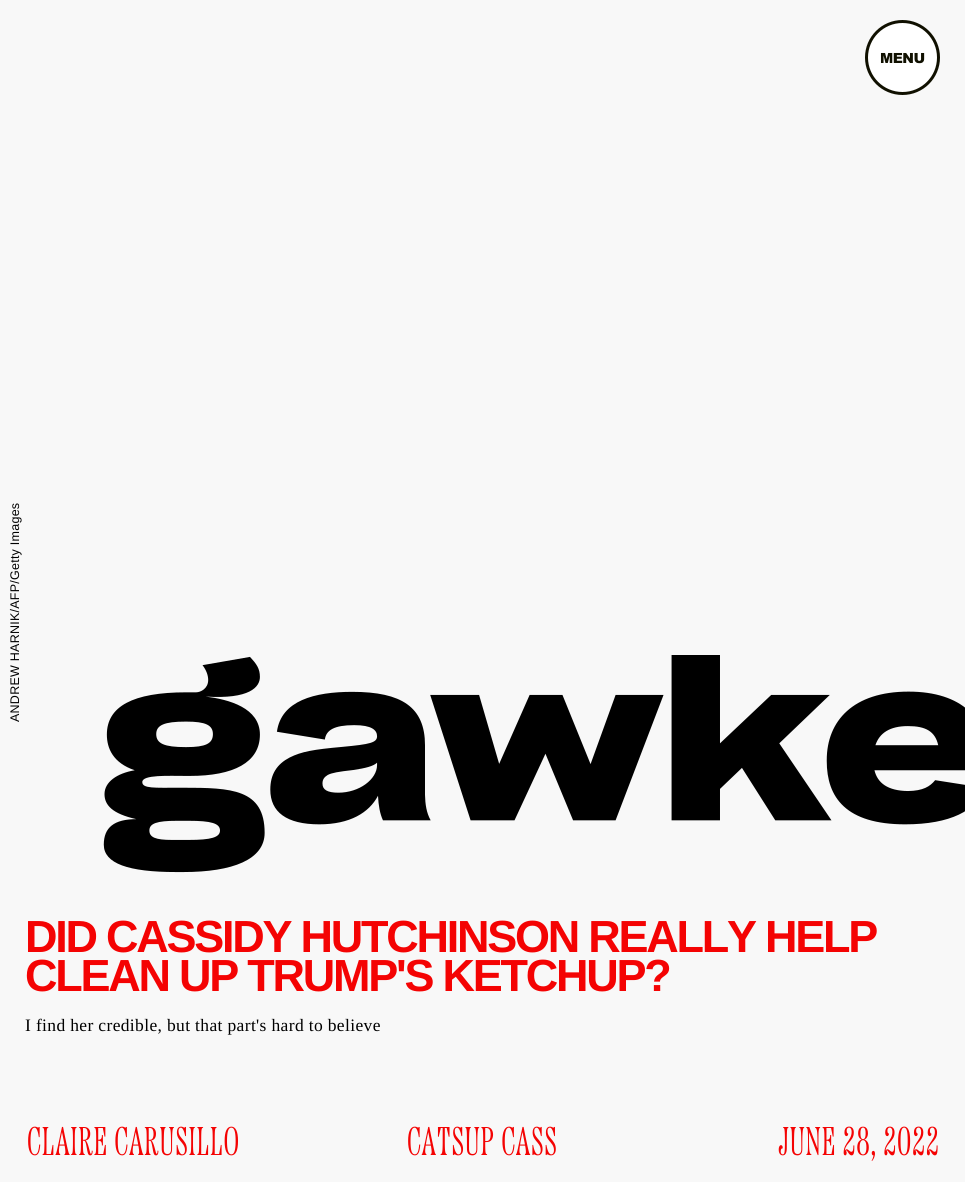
import math
import cairo

surface = cairo.ImageSurface(cairo.Format.RGB24, 965, 1182)
ctx = cairo.Context(surface)
options = cairo.FontOptions()
options.set_hint_metrics(cairo.HintMetrics.OFF)
options.set_hint_style(cairo.HintStyle.NONE)
ctx.set_font_options(options)
ctx.set_miter_limit(4)


def ink(r, g, b):
    ctx.set_source_rgb(r / 255, g / 255, b / 255)


def write_spaced(x, y, s, letter, word):
    ctx.move_to(x, y)
    for ch in s:
        ctx.show_text(ch)
        ctx.rel_move_to(letter + word * (ch == ' '), 0)


def paste(path, x, y, w, h):
    ctx.save()
    ctx.set_source_surface(cairo.ImageSurface.create_from_png(path), x, y)
    ctx.rectangle(x, y, w, h)
    ctx.fill()
    ctx.restore()


ink(248, 248, 248)
ctx.paint()
ink(255, 255, 255)
ctx.arc(902.5, 57.5, 36, 0, 2 * math.pi)
ctx.fill_preserve()
ink(16, 16, 0)
ctx.set_line_width(3)
ctx.stroke()
ctx.select_font_face("Arial Black")
ctx.set_font_size(14)
write_spaced(880, 63, "MENU", -0.5, 0)
ctx.select_font_face("Liberation Sans")
ctx.set_font_size(12.5)
ink(0, 0, 0)
ctx.save()
ctx.translate(19, 722)
ctx.rotate(-90 * math.pi / 180)
write_spaced(0, 0, "ANDREW HARNIK/AFP/Getty Images", 0.25, 0)
ctx.restore()
paste("pic1.png", 103, 655, 862, 218)
ctx.select_font_face("Liberation Sans", cairo.FontSlant.NORMAL, cairo.FontWeight.BOLD)
ctx.set_font_size(45)
ink(244, 3, 3)
write_spaced(25, 952, "DID CASSIDY HUTCHINSON REALLY HELP", -2.25, 0)
write_spaced(25, 991, "CLEAN UP TRUMP'S KETCHUP?", -2.25, 0)
ctx.select_font_face("Liberation Serif")
ctx.set_font_size(17.5)
ink(0, 0, 0)
write_spaced(25, 1031, "I find her credible, but that part's hard to believe", 0.35, 0)
ctx.select_font_face("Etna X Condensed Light")
ctx.set_font_size(40)
ink(244, 3, 3)
write_spaced(27, 1155, "CLAIRE CARUSILLO", 0.75, 0)
write_spaced(407, 1155, "CATSUP CASS", 0.75, 0)
write_spaced(778, 1155, "JUNE 28, 2022", 0.75, 0)
surface.write_to_png("screenshot.png")
